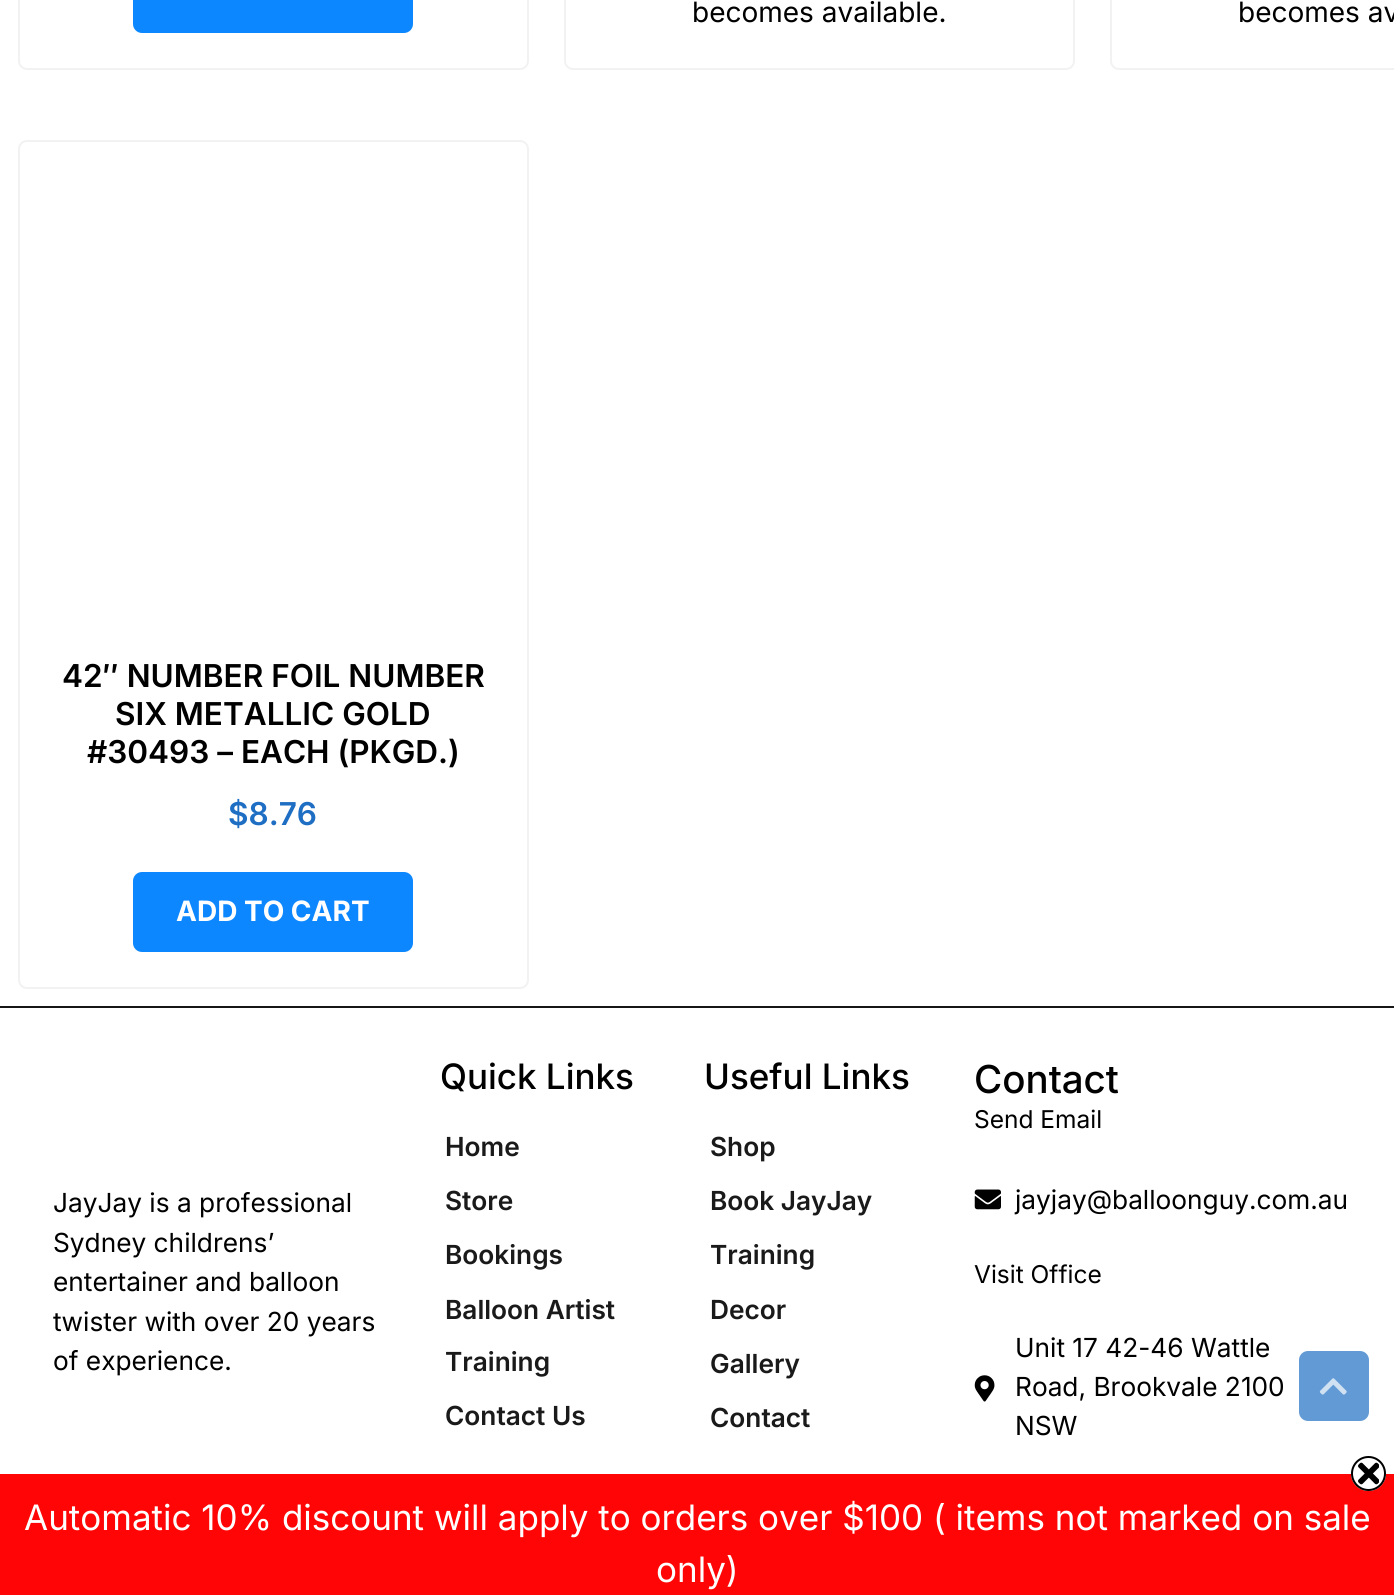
import math
import cairo

surface = cairo.ImageSurface(cairo.Format.RGB24, 1394, 1595)
ctx = cairo.Context(surface)
options = cairo.FontOptions()
options.set_hint_metrics(cairo.HintMetrics.OFF)
options.set_hint_style(cairo.HintStyle.NONE)
ctx.set_font_options(options)
ctx.set_miter_limit(4)


def ink(r, g, b):
    ctx.set_source_rgb(r / 255, g / 255, b / 255)


def write(x, y, s, family, size, color, bold=False, italic=False):
    ctx.select_font_face(family, cairo.FontSlant.ITALIC if italic else cairo.FontSlant.NORMAL, cairo.FontWeight.BOLD if bold else cairo.FontWeight.NORMAL)
    ctx.set_font_size(size)
    ink(*color)
    ctx.move_to(x, y)
    ctx.show_text(s)


def block(x, y, w, h, *color):
    ink(*color)
    ctx.rectangle(x, y, w, h)
    ctx.fill()


def round_path(x, y, w, h, r):
    ctx.new_sub_path()
    for i, (u, v) in enumerate([(x + w - r, y + h - r), (x + r, y + h - r), (x + r, y + r), (x + w - r, y + r)]):
        ctx.arc(u, v, r, i * math.pi / 2, (i + 1) * math.pi / 2)
    ctx.close_path()


def paste(path, x, y, w, h):
    ctx.save()
    ctx.set_source_surface(cairo.ImageSurface.create_from_png(path), x, y)
    ctx.rectangle(x, y, w, h)
    ctx.fill()
    ctx.restore()


s1 = dict(family="Inter", size=28, color=(0, 0, 0))
s2 = dict(family="Inter SemiBold", size=31.5, color=(0, 0, 0))
s3 = dict(family="Inter SemiBold", size=31.5, color=(30, 110, 195))
s4 = dict(family="Inter", size=28, color=(255, 255, 255), bold=True)
s5 = dict(family="Inter", size=26.25, color=(0, 0, 0))
s6 = dict(family="Inter Medium", size=35, color=(0, 0, 0))
s7 = dict(family="Inter SemiBold", size=26.25, color=(26, 26, 26))
s8 = dict(family="Inter Medium", size=38.5, color=(0, 0, 0))
s9 = dict(family="Inter", size=24.5, color=(0, 0, 0))
s10 = dict(family="Inter", size=35, color=(255, 255, 255))

ink(255, 255, 255)
ctx.paint()
round_path(19, -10, 509, 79, 8)
ink(242, 242, 242)
ctx.stroke()
ink(13, 135, 255)
round_path(133, -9, 280, 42, 9)
ctx.fill()
round_path(565, -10, 509, 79, 8)
ink(242, 242, 242)
ctx.stroke()
write(692, 22, "becomes available.", **s1)
round_path(1111, -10, 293, 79, 8)
ink(242, 242, 242)
ctx.stroke()
write(1238, 22, "becomes av", **s1)
round_path(19, 141, 509, 847, 8)
ink(242, 242, 242)
ctx.stroke()
write(62, 687, "42″ NUMBER FOIL NUMBER", **s2)
write(115, 725, "SIX METALLIC GOLD", **s2)
write(87, 763, "#30493 – EACH (PKGD.)", **s2)
write(228, 825, "$8.76", **s3)
ink(13, 135, 255)
round_path(133, 872, 280, 80, 9)
ctx.fill()
write(176, 921, "ADD TO CART", **s4)
block(0, 1006, 1394, 2, 23, 22, 22)
write(53, 1212, "JayJay is a professional", **s5)
write(53, 1252, "Sydney childrens’", **s5)
write(53, 1291, "entertainer and balloon", **s5)
write(53, 1331, "twister with over 20 years", **s5)
write(53, 1370, "of experience.", **s5)
write(440, 1089, "Quick Links", **s6)
write(445, 1156, "Home", **s7)
write(445, 1210, "Store", **s7)
write(445, 1264, "Bookings", **s7)
write(445, 1319, "Balloon Artist", **s7)
write(445, 1371, "Training", **s7)
write(445, 1425, "Contact Us", **s7)
write(704, 1089, "Useful Links", **s6)
write(710, 1156, "Shop", **s7)
write(710, 1210, "Book JayJay", **s7)
write(710, 1264, "Training", **s7)
write(710, 1319, "Decor", **s7)
write(710, 1373, "Gallery", **s7)
write(710, 1427, "Contact", **s7)
write(974, 1093, "Contact", **s8)
write(974, 1128, "Send Email", **s9)
paste("pic1.png", 974, 1189, 27, 21)
write(1015, 1209, "jayjay@balloonguy.com.au", **s5)
write(974, 1283, "Visit Office", **s9)
paste("pic2.png", 974, 1375, 21, 27)
write(1015, 1357, "Unit 17 42-46 Wattle", **s5)
write(1015, 1396, "Road, Brookvale 2100", **s5)
write(1015, 1435, "NSW", **s5)
ink(98, 154, 213)
round_path(1299, 1351, 70, 70, 9)
ctx.fill()
paste("pic3.png", 1319, 1378, 28, 17)
block(0, 1474, 1394, 121, 255, 5, 5)
ink(255, 255, 255)
ctx.arc(1368.5, 1473.5, 17.5, 0, 2 * math.pi)
ctx.fill()
paste("pic4.png", 1358, 1462, 21, 23)
ctx.arc(1368.5, 1473.5, 16.5, 0, 2 * math.pi)
ink(0, 0, 0)
ctx.stroke()
write(24, 1530, "Automatic 10% discount will apply to orders over $100 ( items not marked on sale", **s10)
write(656, 1582, "only)", **s10)
surface.write_to_png("screenshot.png")
